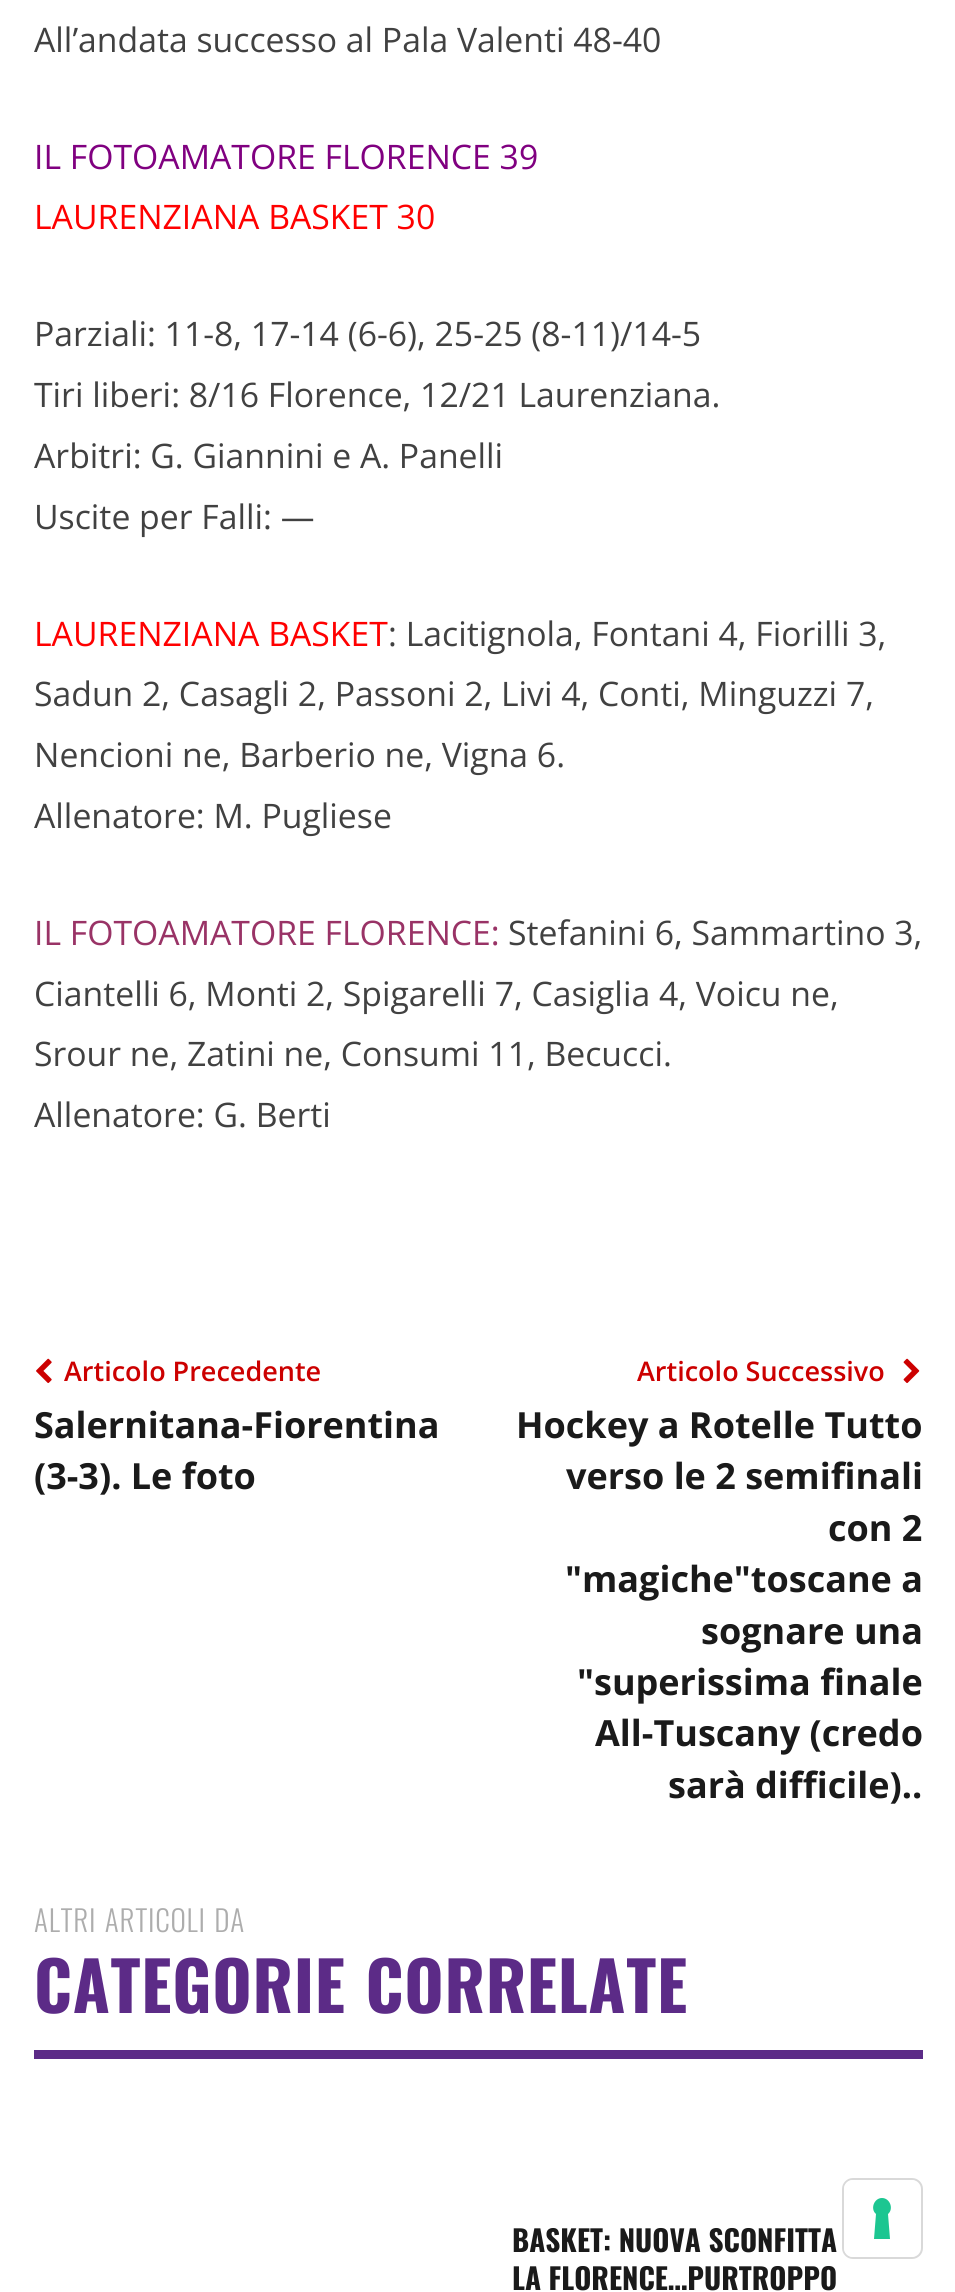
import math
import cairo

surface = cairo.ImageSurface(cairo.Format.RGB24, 955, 2292)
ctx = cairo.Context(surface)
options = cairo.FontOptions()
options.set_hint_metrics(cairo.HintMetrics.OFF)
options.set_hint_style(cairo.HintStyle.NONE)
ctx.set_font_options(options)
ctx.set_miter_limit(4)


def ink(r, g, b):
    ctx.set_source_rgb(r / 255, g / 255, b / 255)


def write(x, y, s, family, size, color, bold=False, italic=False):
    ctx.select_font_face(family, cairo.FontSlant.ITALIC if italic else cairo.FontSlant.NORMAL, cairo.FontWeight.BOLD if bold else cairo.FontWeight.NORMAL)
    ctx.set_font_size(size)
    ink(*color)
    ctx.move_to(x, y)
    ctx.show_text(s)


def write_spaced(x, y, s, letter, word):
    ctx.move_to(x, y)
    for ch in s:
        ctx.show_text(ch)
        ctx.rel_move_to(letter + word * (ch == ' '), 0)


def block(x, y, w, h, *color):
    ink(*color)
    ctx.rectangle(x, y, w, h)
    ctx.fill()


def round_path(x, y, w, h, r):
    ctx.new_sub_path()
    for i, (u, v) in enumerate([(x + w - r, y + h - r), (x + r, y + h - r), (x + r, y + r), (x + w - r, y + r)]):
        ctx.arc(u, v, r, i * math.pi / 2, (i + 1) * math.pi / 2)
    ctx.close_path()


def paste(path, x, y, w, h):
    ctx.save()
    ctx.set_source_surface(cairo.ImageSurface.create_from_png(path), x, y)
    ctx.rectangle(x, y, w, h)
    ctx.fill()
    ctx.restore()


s1 = dict(family="Open Sans", size=33.75, color=(65, 65, 65))
s2 = dict(family="Open Sans", size=33.75, color=(128, 0, 128))
s3 = dict(family="Open Sans", size=33.75, color=(255, 0, 0))
s4 = dict(family="Open Sans", size=33.75, color=(153, 51, 102))
s5 = dict(family="Open Sans SemiBold", size=27, color=(204, 0, 0))
s6 = dict(family="Open Sans", size=36, color=(26, 26, 26), bold=True)
s7 = dict(family="Oswald", size=29.25, color=(26, 26, 26), bold=True)

ink(255, 255, 255)
ctx.paint()
write(34, 52, "All’andata successo al Pala Valenti 48-40", **s1)
write(34, 169, "IL FOTOAMATORE FLORENCE 39", **s2)
write(34, 229, "LAURENZIANA BASKET 30", **s3)
write(34, 346, "Parziali: 11-8, 17-14 (6-6), 25-25 (8-11)/14-5", **s1)
write(34, 407, "Tiri liberi: 8/16 Florence, 12/21 Laurenziana.", **s1)
write(34, 468, "Arbitri: G. Giannini e A. Panelli", **s1)
write(34, 529, "Uscite per Falli: —", **s1)
write(34, 646, "LAURENZIANA BASKET", **s3)
write(388, 646, ": Lacitignola, Fontani 4, Fiorilli 3,", **s1)
write(34, 706, "Sadun 2, Casagli 2, Passoni 2, Livi 4, Conti, Minguzzi 7,", **s1)
write(34, 767, "Nencioni ne, Barberio ne, Vigna 6.", **s1)
write(34, 828, "Allenatore: M. Pugliese", **s1)
write(34, 945, "IL FOTOAMATORE FLORENCE:", **s4)
write(508, 945, "Stefanini 6, Sammartino 3,", **s1)
write(34, 1006, "Ciantelli 6, Monti 2, Spigarelli 7, Casiglia 4, Voicu ne,", **s1)
write(34, 1066, "Srour ne, Zatini ne, Consumi 11, Becucci.", **s1)
write(34, 1127, "Allenatore: G. Berti", **s1)
paste("pic1.png", 36, 1358, 16, 25)
write(64, 1381, "Articolo Precedente", **s5)
write(34, 1438, "Salernitana-Fiorentina", **s6)
write(34, 1489, "(3-3). Le foto", **s6)
write(637, 1381, "Articolo Successivo", **s5)
paste("pic2.png", 903, 1358, 17, 25)
write(516, 1438, "Hockey a Rotelle Tutto", **s6)
write(566, 1489, "verso le 2 semifinali", **s6)
write(828, 1541, "con 2", **s6)
write(565, 1592, "\"magiche\"toscane a", **s6)
write(701, 1644, "sognare una", **s6)
write(577, 1695, "\"superissima finale", **s6)
write(595, 1746, "All-Tuscany (credo", **s6)
write(668, 1798, "sarà difficile)..", **s6)
block(34, 2050, 889, 9, 92, 43, 135)
ctx.select_font_face("Oswald Light")
ctx.set_font_size(29.25)
ink(173, 173, 173)
write_spaced(34, 1932, "ALTRI ARTICOLI DA", 0.7, 2)
ctx.select_font_face("Oswald", cairo.FontSlant.NORMAL, cairo.FontWeight.BOLD)
ctx.set_font_size(67.5)
ink(92, 43, 135)
write_spaced(34, 2013, "CATEGORIE CORRELATE", 0.7, 2)
write(512, 2252, "BASKET: NUOVA SCONFITTA", **s7)
write(512, 2290, "LA FLORENCE…PURTROPPO", **s7)
round_path(843, 2179, 79, 79, 10)
ink(217, 217, 217)
ctx.stroke()
ink(255, 255, 255)
round_path(844, 2180, 76, 77, 9)
ctx.fill()
ink(28, 198, 145)
ctx.set_fill_rule(cairo.FillRule.EVEN_ODD)
ctx.new_path()
ctx.move_to(882, 2198)
ctx.curve_to(890, 2198, 894, 2209, 888, 2214)
ctx.line_to(890, 2239)
ctx.line_to(874, 2239)
ctx.line_to(876, 2214)
ctx.curve_to(870, 2209, 874, 2198, 882, 2198)
ctx.close_path()
ctx.fill()
surface.write_to_png("screenshot.png")
